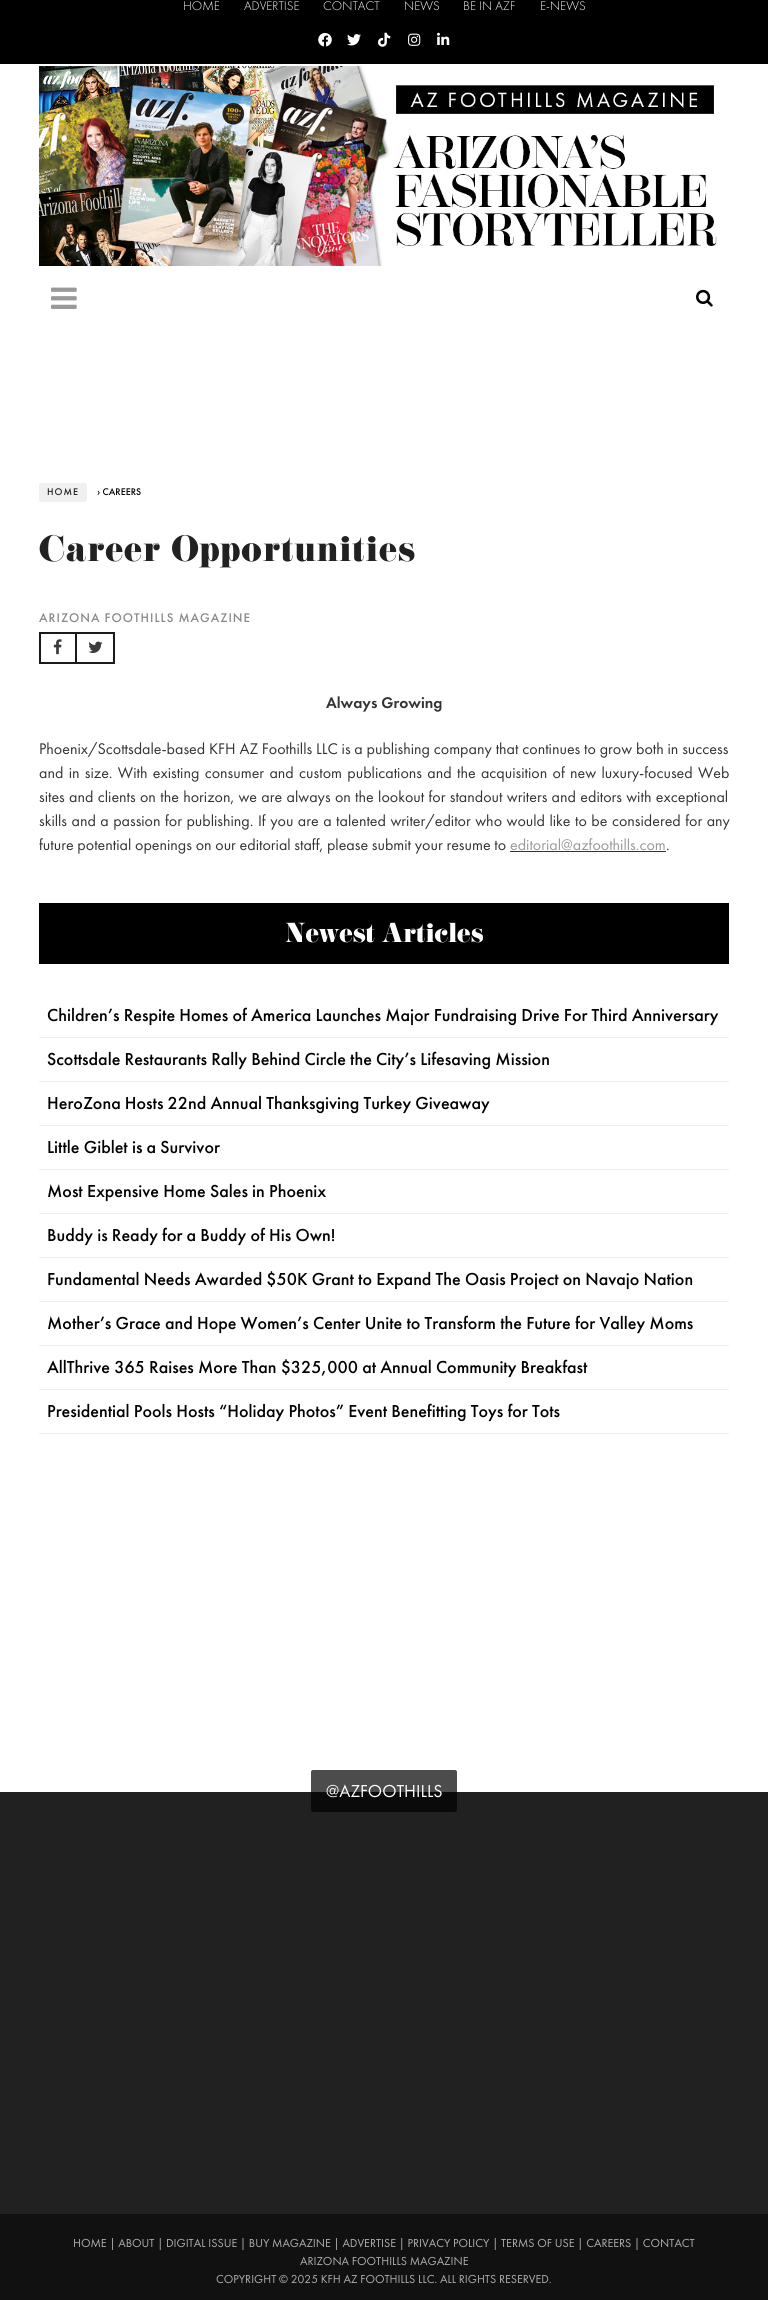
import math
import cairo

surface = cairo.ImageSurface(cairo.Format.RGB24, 768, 2300)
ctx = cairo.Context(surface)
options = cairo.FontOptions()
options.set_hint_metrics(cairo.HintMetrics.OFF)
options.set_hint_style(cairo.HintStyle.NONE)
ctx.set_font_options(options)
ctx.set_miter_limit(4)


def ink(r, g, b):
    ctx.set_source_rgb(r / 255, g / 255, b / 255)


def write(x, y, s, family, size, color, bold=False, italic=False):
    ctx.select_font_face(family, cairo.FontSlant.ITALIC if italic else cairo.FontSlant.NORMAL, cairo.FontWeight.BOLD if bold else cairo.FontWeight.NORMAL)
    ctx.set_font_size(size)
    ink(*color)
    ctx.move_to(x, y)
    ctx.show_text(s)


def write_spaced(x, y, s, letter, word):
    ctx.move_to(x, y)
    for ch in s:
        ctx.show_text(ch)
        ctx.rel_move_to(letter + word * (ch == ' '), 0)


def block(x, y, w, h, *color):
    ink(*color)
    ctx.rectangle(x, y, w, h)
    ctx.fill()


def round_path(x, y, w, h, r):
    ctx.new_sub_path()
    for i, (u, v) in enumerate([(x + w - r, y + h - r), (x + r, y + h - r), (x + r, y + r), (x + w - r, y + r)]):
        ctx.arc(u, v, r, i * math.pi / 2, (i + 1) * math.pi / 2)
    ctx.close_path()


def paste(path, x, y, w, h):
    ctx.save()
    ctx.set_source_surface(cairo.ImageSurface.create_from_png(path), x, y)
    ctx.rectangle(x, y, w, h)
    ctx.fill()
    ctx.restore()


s1 = dict(family="Futura PT Light", size=13, color=(255, 255, 255))
s2 = dict(family="Futura PT Medium", size=10, color=(0, 0, 0))
s3 = dict(family="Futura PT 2 Medium", size=16, color=(51, 51, 51))
s4 = dict(family="Futura PT", size=16, color=(51, 51, 51))
s5 = dict(family="Futura PT", size=16, color=(153, 153, 153))
s6 = dict(family="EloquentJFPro", size=24, color=(255, 255, 255))
s7 = dict(family="Futura PT Medium", size=18, color=(0, 0, 0))
s8 = dict(family="Futura PT", size=18, color=(255, 255, 255))
s9 = dict(family="Futura PT", size=12, color=(176, 176, 176))

ink(255, 255, 255)
ctx.paint()
block(0, 0, 768, 64, 0, 0, 0)
write(183, 10, "HOME", **s1)
write(244, 10, "ADVERTISE", **s1)
write(323, 10, "CONTACT", **s1)
write(404, 10, "NEWS", **s1)
write(463, 10, "BE IN AZF", **s1)
write(540, 10, "E-NEWS", **s1)
paste("pic1.png", 318, 33, 14, 14)
paste("pic2.png", 347, 34, 14, 12)
paste("pic3.png", 378, 32, 13, 15)
paste("pic4.png", 408, 33, 13, 13)
paste("pic5.png", 437, 32, 13, 13)
paste("pic6.png", 39, 66, 678, 200)
paste("pic7.png", 51, 287, 26, 22)
paste("pic8.png", 696, 289, 17, 18)
ink(240, 240, 240)
round_path(39, 483, 48, 19, 2)
ctx.fill()
ctx.select_font_face("Futura PT Medium")
ctx.set_font_size(10)
ink(33, 33, 33)
write_spaced(47, 495, "HOME", 1, 0)
write(97, 495, "› CAREERS", **s2)
ctx.select_font_face("EloquentJFPro")
ctx.set_font_size(32)
ink(33, 33, 33)
write_spaced(39, 561, "Career Opportunities", 1, 0)
ctx.select_font_face("Futura PT Medium")
ctx.set_font_size(13)
ink(136, 136, 136)
write_spaced(39, 622, "ARIZONA FOOTHILLS MAGAZINE", 1, 0)
ctx.rectangle(40, 633, 36, 30)
ink(26, 26, 26)
ctx.stroke()
paste("pic9.png", 53, 639, 9, 16)
block(77, 632, 38, 2, 26, 26, 26)
block(113, 632, 2, 32, 26, 26, 26)
block(77, 662, 38, 2, 26, 26, 26)
paste("pic10.png", 88, 641, 15, 12)
write(326, 708, "Always Growing", **s3)
ctx.select_font_face("Futura PT")
write_spaced(39, 754, "Phoenix/Scottsdale-based KFH AZ Foothills LLC is a publishing company that continues to grow both in success", 0, 0.1)
write_spaced(39, 778, "and in size. With existing consumer and custom publications and the acquisition of new luxury-focused Web", 0, 1.6)
write_spaced(39, 802, "sites and clients on the horizon, we are always on the lookout for standout writers and editors with exceptional", 0, 0.6)
write_spaced(39, 826, "skills and a passion for publishing. If you are a talented writer/editor who would like to be considered for any", 0, 0.75)
write(39, 850, "future potential openings on our editorial staff, please submit your resume to", **s4)
write(510, 850, "editorial@azfoothills.com", **s5)
write(666, 850, ".", **s4)
block(510, 851, 156, 1, 51, 51, 51)
block(39, 903, 690, 61, 0, 0, 0)
write(285, 942, "Newest Articles", **s6)
block(39, 1037, 690, 1, 239, 239, 239)
write(47, 1021, "Children’s Respite Homes of America Launches Major Fundraising Drive For Third Anniversary", **s7)
block(39, 1081, 690, 1, 239, 239, 239)
write(47, 1065, "Scottsdale Restaurants Rally Behind Circle the City’s Lifesaving Mission", **s7)
block(39, 1125, 690, 1, 239, 239, 239)
write(47, 1109, "HeroZona Hosts 22nd Annual Thanksgiving Turkey Giveaway", **s7)
block(39, 1169, 690, 1, 239, 239, 239)
write(47, 1153, "Little Giblet is a Survivor", **s7)
block(39, 1213, 690, 1, 239, 239, 239)
write(47, 1197, "Most Expensive Home Sales in Phoenix", **s7)
block(39, 1257, 690, 1, 239, 239, 239)
write(47, 1241, "Buddy is Ready for a Buddy of His Own!", **s7)
block(39, 1301, 690, 1, 239, 239, 239)
write(47, 1285, "Fundamental Needs Awarded $50K Grant to Expand The Oasis Project on Navajo Nation", **s7)
block(39, 1345, 690, 1, 239, 239, 239)
write(47, 1329, "Mother’s Grace and Hope Women’s Center Unite to Transform the Future for Valley Moms", **s7)
block(39, 1389, 690, 1, 239, 239, 239)
write(47, 1373, "AllThrive 365 Raises More Than $325,000 at Annual Community Breakfast", **s7)
block(39, 1433, 690, 1, 239, 239, 239)
write(47, 1417, "Presidential Pools Hosts “Holiday Photos” Event Benefitting Toys for Tots", **s7)
block(0, 1792, 768, 422, 33, 33, 33)
ctx.set_source_rgba(0, 0, 0, 0.7)
round_path(311, 1770, 146, 42, 2)
ctx.fill()
write(326, 1797, "@AZFOOTHILLS", **s8)
block(0, 2214, 768, 86, 17, 17, 17)
write(73, 2247, "HOME | ABOUT | DIGITAL ISSUE | BUY MAGAZINE | ADVERTISE | PRIVACY POLICY | TERMS OF USE | CAREERS | CONTACT", **s9)
write(300, 2265, "ARIZONA FOOTHILLS MAGAZINE", **s9)
write(216, 2283, "COPYRIGHT © 2025 KFH AZ FOOTHILLS LLC. ALL RIGHTS RESERVED.", **s9)
surface.write_to_png("screenshot.png")
